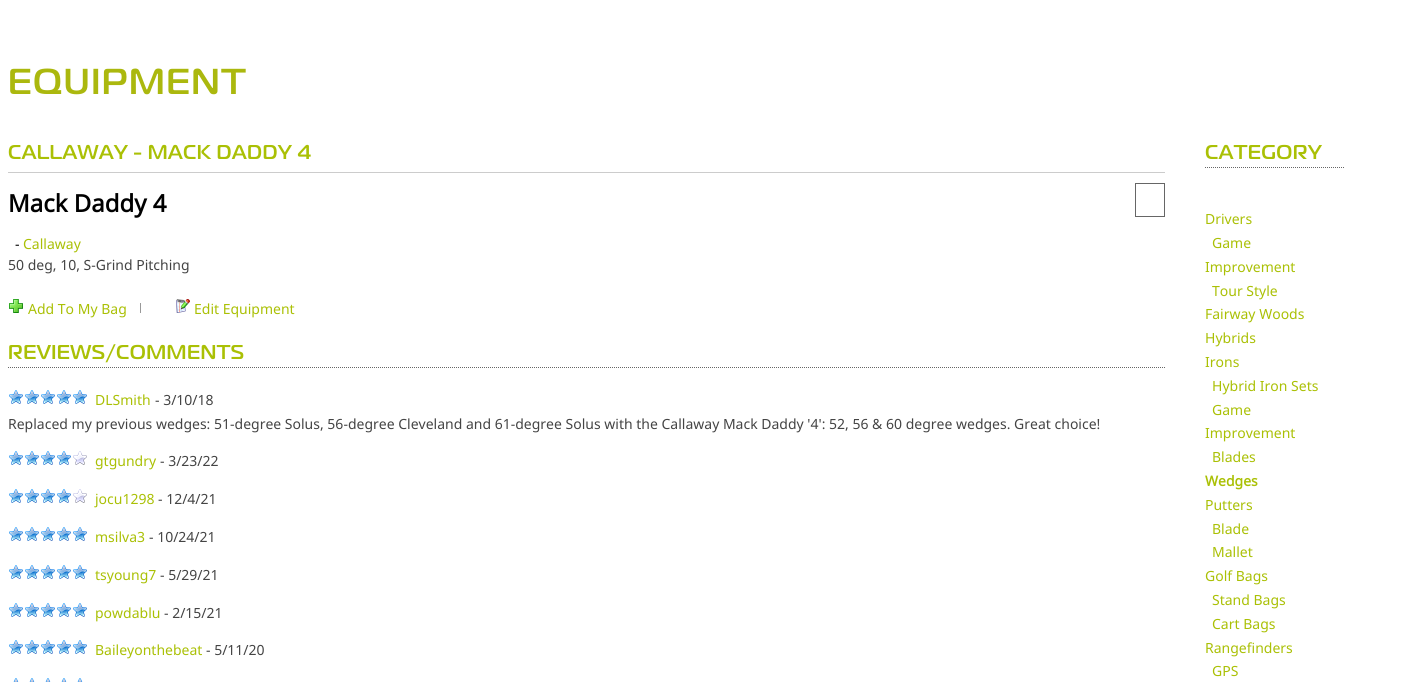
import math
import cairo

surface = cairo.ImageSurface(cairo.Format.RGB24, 1427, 682)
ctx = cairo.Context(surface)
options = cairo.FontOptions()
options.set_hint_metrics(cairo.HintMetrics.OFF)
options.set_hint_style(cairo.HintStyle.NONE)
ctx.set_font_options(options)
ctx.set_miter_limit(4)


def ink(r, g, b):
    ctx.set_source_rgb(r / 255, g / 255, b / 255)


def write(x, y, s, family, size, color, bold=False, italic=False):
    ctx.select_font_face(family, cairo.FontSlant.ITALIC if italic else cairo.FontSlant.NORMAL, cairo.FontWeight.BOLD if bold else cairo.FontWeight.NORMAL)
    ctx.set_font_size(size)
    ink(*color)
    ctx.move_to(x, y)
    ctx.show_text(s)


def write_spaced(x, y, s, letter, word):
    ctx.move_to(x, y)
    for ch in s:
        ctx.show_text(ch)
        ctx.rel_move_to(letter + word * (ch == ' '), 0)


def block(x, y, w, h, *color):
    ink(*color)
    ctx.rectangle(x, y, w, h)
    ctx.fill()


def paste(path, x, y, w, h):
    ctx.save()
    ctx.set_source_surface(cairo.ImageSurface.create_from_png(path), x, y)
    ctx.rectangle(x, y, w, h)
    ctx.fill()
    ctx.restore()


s1 = dict(family="Noto Sans", size=24, color=(0, 0, 0), bold=True)
s2 = dict(family="Noto Sans", size=14, color=(0, 0, 0))
s3 = dict(family="Noto Sans", size=14, color=(170, 192, 5))
s4 = dict(family="Noto Sans", size=14, color=(68, 68, 68))
s5 = dict(family="Noto Sans", size=14, color=(170, 192, 5), bold=True)

ink(255, 255, 255)
ctx.paint()
ctx.select_font_face("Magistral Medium")
ctx.set_font_size(36)
ink(171, 184, 14)
write_spaced(8, 94, "EQUIPMENT", 1.5, 0)
ctx.set_font_size(20)
ink(170, 192, 5)
write_spaced(8, 159, "CALLAWAY - MACK DADDY 4", 0.5, 0)
block(8, 172, 1157, 1, 204, 204, 204)
write(8, 212, "Mack Daddy 4", **s1)
ctx.rectangle(1135.5, 183.5, 29, 33)
ink(102, 102, 102)
ctx.set_line_width(1)
ctx.stroke()
write(15, 249, "-", **s2)
write(23, 249, "Callaway", **s3)
write(8, 270, "50 deg, 10, S-Grind Pitching", **s4)
paste("pic1.png", 9, 299, 14, 14)
write(28, 314, "Add To My Bag", **s3)
block(140, 303, 1, 10, 153, 153, 153)
paste("pic2.png", 176, 299, 14, 14)
write(194, 314, "Edit Equipment", **s3)
ctx.new_path()
ctx.move_to(8, 367.5)
ctx.line_to(1165, 367.5)
ink(102, 102, 102)
ctx.set_dash([1, 1])
ctx.stroke()
ctx.select_font_face("Magistral Medium")
ctx.set_font_size(20)
ink(170, 192, 5)
write_spaced(8, 359, "REVIEWS/COMMENTS", 0.5, 0)
paste("pic3.png", 9, 390, 14, 14)
paste("pic3.png", 25, 390, 14, 14)
paste("pic3.png", 41, 390, 14, 14)
paste("pic3.png", 57, 390, 14, 14)
paste("pic3.png", 73, 390, 14, 14)
write(95, 405, "DLSmith", **s3)
write(155, 405, "- 3/10/18", **s4)
write(8, 429, "Replaced my previous wedges: 51-degree Solus, 56-degree Cleveland and 61-degree Solus with the Callaway Mack Daddy '4': 52, 56 & 60 degree wedges. Great choice!", **s4)
paste("pic3.png", 9, 451, 14, 14)
paste("pic3.png", 25, 451, 14, 14)
paste("pic3.png", 41, 451, 14, 14)
paste("pic3.png", 57, 451, 14, 14)
paste("pic4.png", 73, 451, 14, 14)
write(95, 466, "gtgundry", **s3)
write(160, 466, "- 3/23/22", **s4)
paste("pic3.png", 9, 489, 14, 14)
paste("pic3.png", 25, 489, 14, 14)
paste("pic3.png", 41, 489, 14, 14)
paste("pic3.png", 57, 489, 14, 14)
paste("pic4.png", 73, 489, 14, 14)
write(95, 504, "jocu1298", **s3)
write(158, 504, "- 12/4/21", **s4)
paste("pic3.png", 9, 527, 14, 14)
paste("pic3.png", 25, 527, 14, 14)
paste("pic3.png", 41, 527, 14, 14)
paste("pic3.png", 57, 527, 14, 14)
paste("pic3.png", 73, 527, 14, 14)
write(95, 542, "msilva3", **s3)
write(149, 542, "- 10/24/21", **s4)
paste("pic3.png", 9, 565, 14, 14)
paste("pic3.png", 25, 565, 14, 14)
paste("pic3.png", 41, 565, 14, 14)
paste("pic3.png", 57, 565, 14, 14)
paste("pic3.png", 73, 565, 14, 14)
write(95, 580, "tsyoung7", **s3)
write(160, 580, "- 5/29/21", **s4)
paste("pic3.png", 9, 603, 14, 14)
paste("pic3.png", 25, 603, 14, 14)
paste("pic3.png", 41, 603, 14, 14)
paste("pic3.png", 57, 603, 14, 14)
paste("pic3.png", 73, 603, 14, 14)
write(95, 618, "powdablu", **s3)
write(164, 618, "- 2/15/21", **s4)
paste("pic3.png", 9, 640, 14, 14)
paste("pic3.png", 25, 640, 14, 14)
paste("pic3.png", 41, 640, 14, 14)
paste("pic3.png", 57, 640, 14, 14)
paste("pic3.png", 73, 640, 14, 14)
write(95, 655, "Baileyonthebeat", **s3)
write(206, 655, "- 5/11/20", **s4)
paste("pic5.png", 13, 678, 6, 4)
paste("pic5.png", 29, 678, 6, 4)
paste("pic5.png", 45, 678, 6, 4)
paste("pic5.png", 61, 678, 6, 4)
paste("pic5.png", 77, 678, 6, 4)
ctx.new_path()
ctx.move_to(1205, 167.5)
ctx.line_to(1345, 167.5)
ink(102, 102, 102)
ctx.stroke()
ctx.select_font_face("Magistral Medium")
ctx.set_font_size(20)
ink(170, 192, 5)
write_spaced(1205, 159, "CATEGORY", 0.5, 0)
write(1205, 224, "Drivers", **s3)
write(1212, 248, "Game", **s3)
write(1205, 272, "Improvement", **s3)
write(1212, 296, "Tour Style", **s3)
write(1205, 319, "Fairway Woods", **s3)
write(1205, 343, "Hybrids", **s3)
write(1205, 367, "Irons", **s3)
write(1212, 391, "Hybrid Iron Sets", **s3)
write(1212, 415, "Game", **s3)
write(1205, 438, "Improvement", **s3)
write(1212, 462, "Blades", **s3)
write(1205, 486, "Wedges", **s5)
write(1205, 510, "Putters", **s3)
write(1212, 534, "Blade", **s3)
write(1212, 557, "Mallet", **s3)
write(1205, 581, "Golf Bags", **s3)
write(1212, 605, "Stand Bags", **s3)
write(1212, 629, "Cart Bags", **s3)
write(1205, 653, "Rangefinders", **s3)
write(1212, 676, "GPS", **s3)
surface.write_to_png("screenshot.png")
